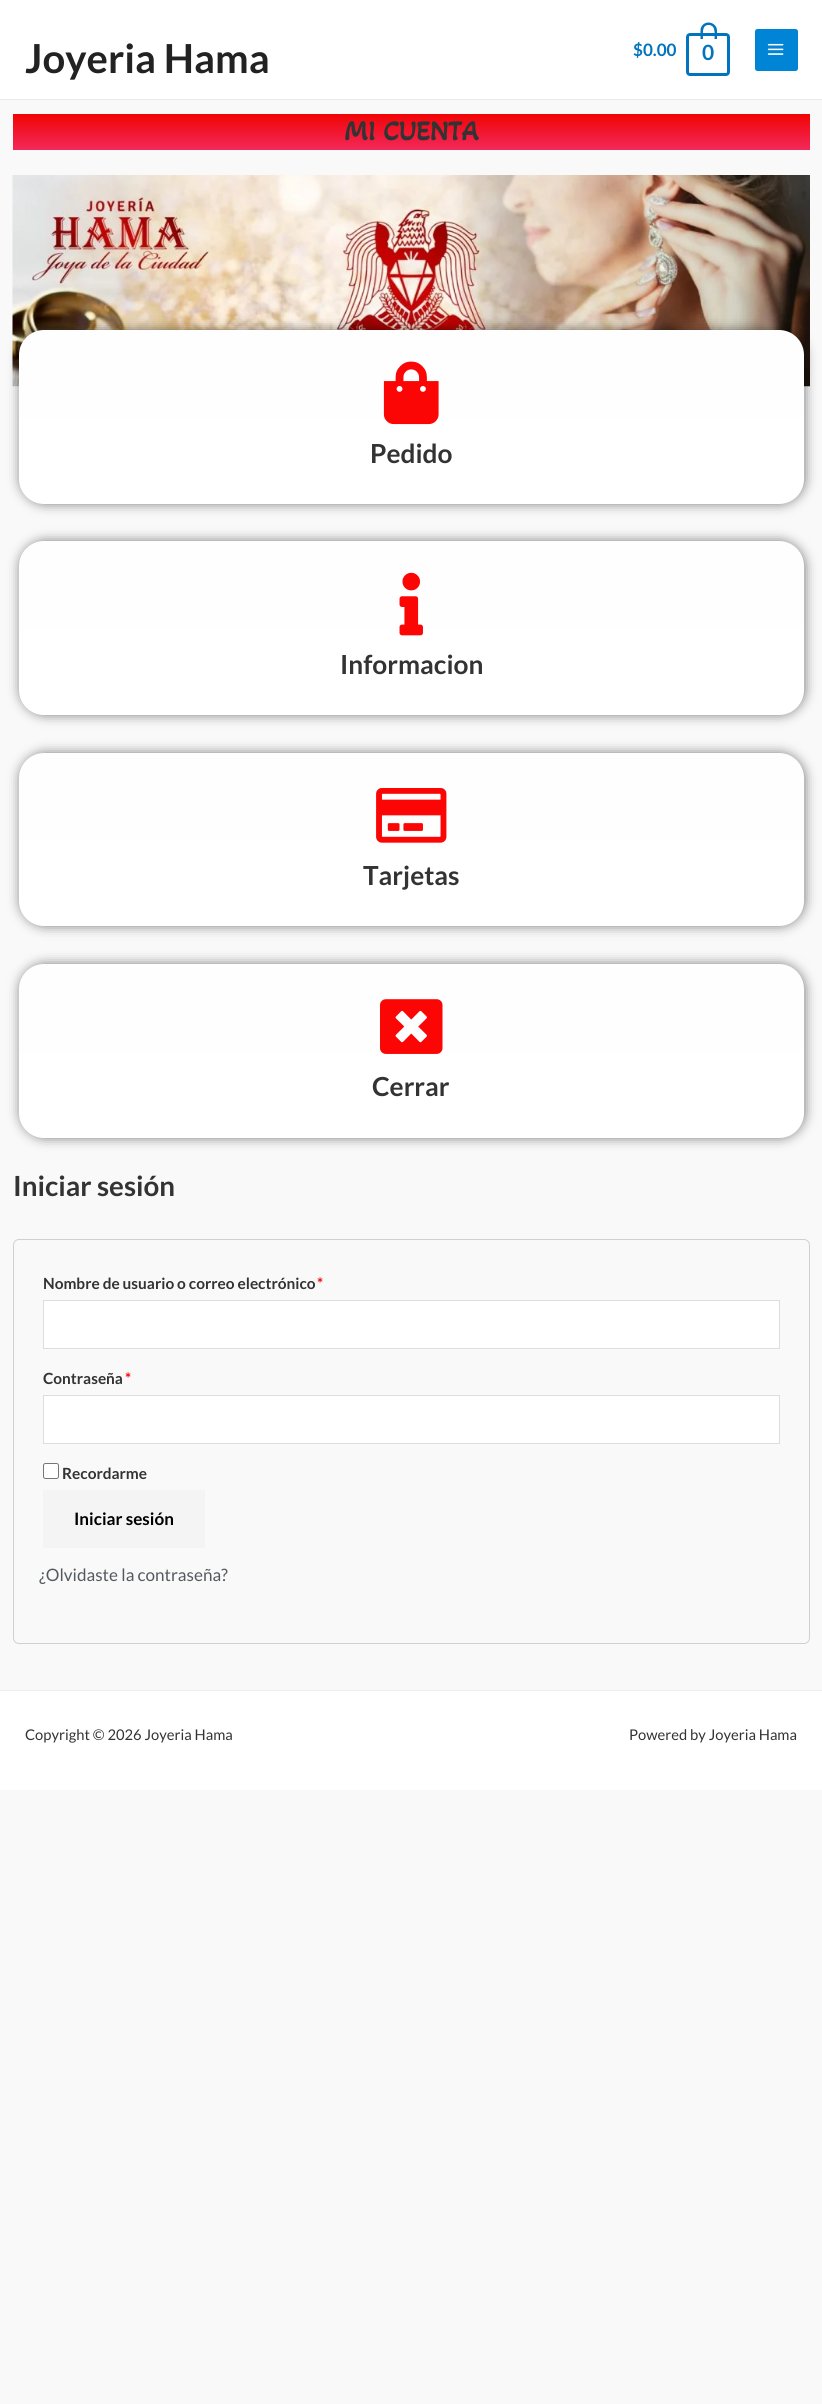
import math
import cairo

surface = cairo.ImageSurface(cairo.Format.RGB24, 822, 2404)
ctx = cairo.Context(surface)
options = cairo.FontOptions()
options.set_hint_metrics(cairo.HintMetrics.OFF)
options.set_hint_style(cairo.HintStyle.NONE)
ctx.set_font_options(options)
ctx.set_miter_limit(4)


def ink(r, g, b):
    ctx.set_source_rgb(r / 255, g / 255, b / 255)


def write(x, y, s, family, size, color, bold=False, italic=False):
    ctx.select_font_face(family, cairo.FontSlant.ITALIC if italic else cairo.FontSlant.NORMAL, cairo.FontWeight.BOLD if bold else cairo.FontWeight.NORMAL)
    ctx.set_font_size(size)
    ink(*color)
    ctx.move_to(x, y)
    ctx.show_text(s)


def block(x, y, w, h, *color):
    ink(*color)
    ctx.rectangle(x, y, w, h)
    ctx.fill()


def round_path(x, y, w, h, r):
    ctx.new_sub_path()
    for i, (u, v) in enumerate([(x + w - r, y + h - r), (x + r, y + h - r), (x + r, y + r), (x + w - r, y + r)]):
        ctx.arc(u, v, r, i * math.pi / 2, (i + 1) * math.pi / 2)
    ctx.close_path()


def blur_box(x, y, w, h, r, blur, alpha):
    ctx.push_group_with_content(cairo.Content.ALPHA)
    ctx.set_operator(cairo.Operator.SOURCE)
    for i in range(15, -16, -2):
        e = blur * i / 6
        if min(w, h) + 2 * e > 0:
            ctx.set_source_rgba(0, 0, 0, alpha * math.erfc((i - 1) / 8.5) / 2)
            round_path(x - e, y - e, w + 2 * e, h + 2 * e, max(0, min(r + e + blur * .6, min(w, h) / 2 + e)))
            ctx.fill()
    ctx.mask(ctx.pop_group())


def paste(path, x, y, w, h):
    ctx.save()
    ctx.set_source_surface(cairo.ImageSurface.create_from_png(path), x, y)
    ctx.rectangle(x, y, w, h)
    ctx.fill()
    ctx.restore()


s1 = dict(family="Lato", size=40, color=(34, 34, 34), bold=True)
s2 = dict(family="Lato", size=17.1, color=(2, 116, 190), bold=True)
s3 = dict(family="Lato", size=21, color=(2, 116, 190), bold=True)
s4 = dict(family="Akaya Telivigala", size=27.75, color=(51, 51, 51), bold=True)
s5 = dict(family="Lato", size=26.25, color=(51, 51, 51), bold=True)
s6 = dict(family="Lato", size=27.75, color=(51, 51, 51), bold=True)
s7 = dict(family="Lato", size=15.4, color=(51, 51, 51), bold=True)
s8 = dict(family="Lato", size=15.4, color=(255, 0, 0), bold=True)
s9 = dict(family="Lato", size=17.1, color=(0, 0, 0), bold=True)
s10 = dict(family="Lato", size=17.1, color=(84, 89, 95))
s11 = dict(family="Lato", size=14.75, color=(51, 51, 51))

ink(249, 249, 249)
ctx.paint()
block(0, 0, 822, 99, 255, 255, 255)
block(0, 99, 822, 1, 234, 234, 234)
write(25, 73, "Joyeria Hama", **s1)
write(633, 56, "$0.00", **s2)
round_path(687.5, 34.5, 41, 40, 2.5)
ctx.set_line_width(3)
ctx.stroke()
ctx.set_fill_rule(cairo.FillRule.EVEN_ODD)
ctx.new_path()
ctx.move_to(708.5, 22.5)
ctx.curve_to(713, 22.5, 717, 26, 717, 30.5)
ctx.line_to(717, 39)
ctx.line_to(700.5, 39)
ctx.line_to(700.5, 30.5)
ctx.curve_to(700.5, 26, 704, 22.5, 708.5, 22.5)
ctx.close_path()
ctx.move_to(708.5, 25)
ctx.curve_to(716, 25, 714.5, 34, 714.5, 39)
ctx.line_to(703, 39)
ctx.curve_to(703, 34, 701.5, 25, 708.5, 25)
ctx.close_path()
ctx.fill()
write(702, 60, "0", **s3)
ink(0, 132, 214)
round_path(755, 29, 43, 42, 2.5)
ctx.fill()
paste("pic1.png", 767, 43, 17, 12)
gradient = cairo.LinearGradient(411, 114, 411, 150)
gradient.add_color_stop_rgba(0, 0.945, 0.016, 0.016, 1)
gradient.add_color_stop_rgba(1, 0.949, 0.161, 0.357, 1)
ctx.set_source(gradient)
ctx.rectangle(13, 114, 797, 36)
ctx.fill()
write(344, 140, "MI CUENTA", **s4)
paste("pic2.png", 12, 175, 798, 212)
ink(0, 0, 0)
blur_box(20, 330, 785, 174, 25, 6, 0.5)
gradient = cairo.LinearGradient(411, 330, 411, 504)
gradient.add_color_stop_rgba(0, 0.996, 0.996, 0.996, 1)
gradient.add_color_stop_rgba(1, 1, 1, 1, 1)
ctx.set_source(gradient)
round_path(19, 330, 785, 174, 25)
ctx.fill()
paste("pic3.png", 383, 361, 56, 64)
write(370, 463, "Pedido", **s5)
ink(0, 0, 0)
blur_box(20, 541, 785, 174, 25, 6, 0.5)
gradient = cairo.LinearGradient(411, 541, 411, 715)
gradient.add_color_stop_rgba(0, 0.996, 0.996, 0.996, 1)
gradient.add_color_stop_rgba(1, 1, 1, 1, 1)
ctx.set_source(gradient)
round_path(19, 541, 785, 174, 25)
ctx.fill()
paste("pic4.png", 399, 572, 24, 64)
write(340, 674, "Informacion", **s5)
ink(0, 0, 0)
blur_box(20, 753, 785, 173, 25, 6, 0.5)
gradient = cairo.LinearGradient(411, 753, 411, 926)
gradient.add_color_stop_rgba(0, 0.996, 0.996, 0.996, 1)
gradient.add_color_stop_rgba(1, 1, 1, 1, 1)
ctx.set_source(gradient)
round_path(19, 753, 785, 173, 25)
ctx.fill()
paste("pic5.png", 376, 788, 71, 55)
write(363, 885, "Tarjetas", **s5)
ink(0, 0, 0)
blur_box(20, 964, 785, 174, 25, 6, 0.5)
gradient = cairo.LinearGradient(411, 964, 411, 1138)
gradient.add_color_stop_rgba(0, 0.996, 0.996, 0.996, 1)
gradient.add_color_stop_rgba(1, 1, 1, 1, 1)
ctx.set_source(gradient)
round_path(19, 964, 785, 174, 25)
ctx.fill()
paste("pic6.png", 380, 999, 63, 55)
write(372, 1096, "Cerrar", **s5)
write(13, 1196, "Iniciar sesión", **s6)
round_path(13.5, 1239.5, 796, 404, 5.5)
ink(211, 206, 210)
ctx.set_line_width(1)
ctx.stroke()
write(43, 1289, "Nombre de usuario o correo electrónico", **s7)
write(317, 1289, "*", **s8)
ink(255, 255, 255)
ctx.rectangle(43.5, 1300.5, 736, 48)
ctx.fill_preserve()
ink(221, 221, 221)
ctx.stroke()
write(43, 1384, "Contraseña", **s7)
write(125, 1384, "*", **s8)
ink(255, 255, 255)
ctx.rectangle(43.5, 1395.5, 736, 48)
ctx.fill_preserve()
ink(221, 221, 221)
ctx.stroke()
ink(255, 255, 255)
round_path(43.5, 1463.5, 15, 15, 2)
ctx.fill_preserve()
ink(118, 118, 118)
ctx.stroke()
write(62, 1479, "Recordarme", **s7)
block(43, 1490, 162, 58, 244, 244, 244)
write(74, 1525, "Iniciar sesión", **s9)
write(39, 1581, "¿Olvidaste la contraseña?", **s10)
block(0, 1691, 822, 99, 255, 255, 255)
block(0, 1690, 822, 1, 238, 238, 238)
write(25, 1740, "Copyright © 2026 Joyeria Hama", **s11)
write(629, 1740, "Powered by Joyeria Hama", **s11)
surface.write_to_png("screenshot.png")
